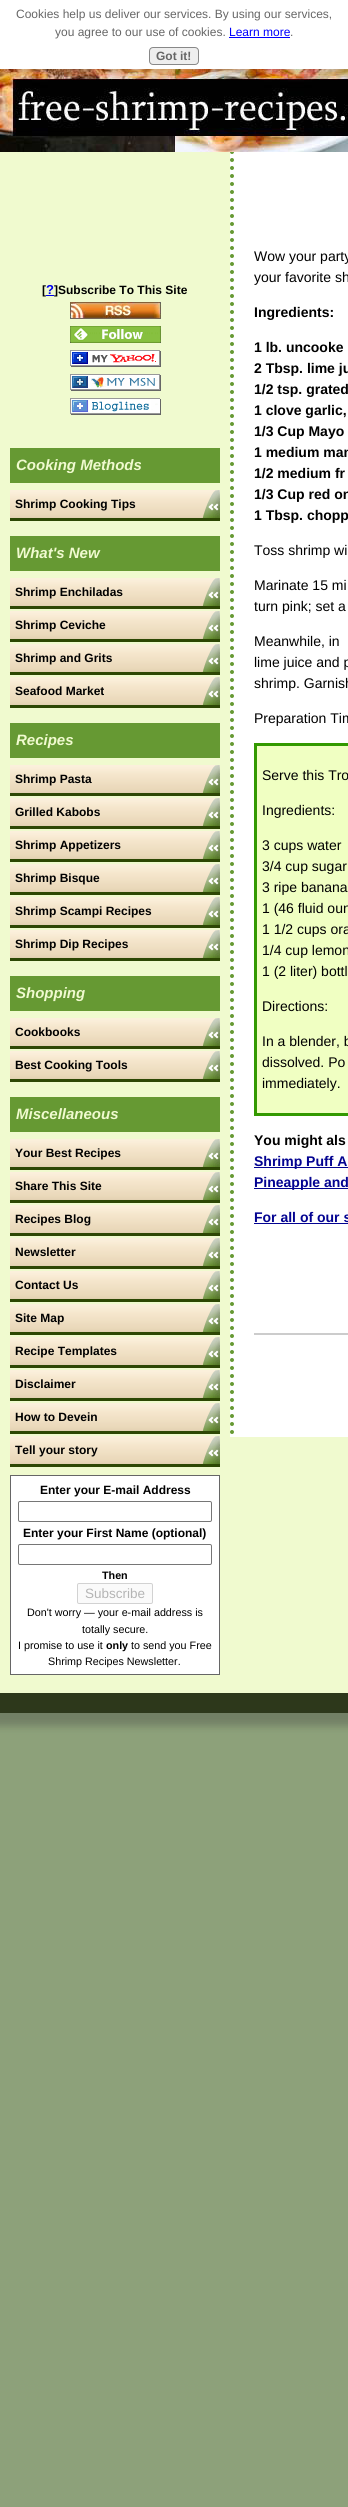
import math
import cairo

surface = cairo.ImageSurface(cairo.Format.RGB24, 348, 2507)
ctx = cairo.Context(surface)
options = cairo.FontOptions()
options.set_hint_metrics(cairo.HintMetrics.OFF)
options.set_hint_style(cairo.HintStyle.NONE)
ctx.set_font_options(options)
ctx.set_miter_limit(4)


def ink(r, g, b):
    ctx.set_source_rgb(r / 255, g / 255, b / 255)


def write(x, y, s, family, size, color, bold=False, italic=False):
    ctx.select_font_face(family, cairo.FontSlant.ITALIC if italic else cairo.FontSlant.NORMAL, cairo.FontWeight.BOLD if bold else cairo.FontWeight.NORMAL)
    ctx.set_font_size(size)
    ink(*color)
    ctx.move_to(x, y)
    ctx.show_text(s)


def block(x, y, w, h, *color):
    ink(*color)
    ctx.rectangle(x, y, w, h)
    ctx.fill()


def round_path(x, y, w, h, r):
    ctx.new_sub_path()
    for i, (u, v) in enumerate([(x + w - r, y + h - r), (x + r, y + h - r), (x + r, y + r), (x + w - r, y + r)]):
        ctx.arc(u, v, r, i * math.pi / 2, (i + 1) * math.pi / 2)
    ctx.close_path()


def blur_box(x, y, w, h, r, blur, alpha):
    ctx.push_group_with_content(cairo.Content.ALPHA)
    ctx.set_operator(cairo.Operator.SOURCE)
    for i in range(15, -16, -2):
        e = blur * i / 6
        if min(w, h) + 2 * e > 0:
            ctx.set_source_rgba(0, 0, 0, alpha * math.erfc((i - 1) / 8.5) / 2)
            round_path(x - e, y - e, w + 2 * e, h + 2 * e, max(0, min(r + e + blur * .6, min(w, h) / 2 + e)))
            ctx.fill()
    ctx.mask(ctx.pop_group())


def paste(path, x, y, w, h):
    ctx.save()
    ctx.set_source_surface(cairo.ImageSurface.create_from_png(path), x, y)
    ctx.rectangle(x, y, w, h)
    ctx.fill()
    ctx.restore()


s1 = dict(family="Liberation Sans", size=12, color=(102, 102, 102))
s2 = dict(family="Liberation Sans", size=12, color=(0, 0, 255))
s3 = dict(family="Liberation Sans", size=12, color=(102, 102, 102), bold=True)
s4 = dict(family="Liberation Sans", size=12, color=(0, 0, 0), bold=True)
s5 = dict(family="Liberation Sans", size=13, color=(0, 0, 238), bold=True)
s6 = dict(family="Liberation Sans", size=15, color=(240, 250, 207), bold=True, italic=True)
s7 = dict(family="Liberation Sans", size=10.75, color=(0, 0, 0), bold=True)
s8 = dict(family="Liberation Sans", size=13.5, color=(180, 180, 180))
s9 = dict(family="Liberation Sans", size=10.75, color=(0, 0, 0))
s10 = dict(family="Liberation Sans", size=14, color=(0, 0, 0))
s11 = dict(family="Liberation Sans", size=14, color=(0, 0, 0), bold=True)
s12 = dict(family="Liberation Sans", size=14, color=(3, 3, 145), bold=True)

ink(141, 161, 122)
ctx.paint()
ink(114, 128, 101)
blur_box(-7, -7, 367, 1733, 0, 4, 1)
block(0, 152, 348, 1541, 240, 250, 207)
block(230, 152, 118, 1285, 255, 255, 255)
ctx.new_path()
ctx.move_to(232, 152)
ctx.line_to(232, 1437)
ink(102, 153, 51)
ctx.set_line_width(4)
ctx.set_line_cap(cairo.LineCap.ROUND)
ctx.set_dash([0, 8])
ctx.stroke()
paste("pic1.png", 0, 69, 348, 83)
ink(0, 0, 0)
blur_box(-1, 3, 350, 71, 0, 5, 0.2)
block(0, 0, 348, 69, 255, 255, 255)
write(16, 18, "Cookies help us deliver our services. By using our services,", **s1)
write(55, 36, "you agree to our use of cookies.", **s1)
write(229, 36, "Learn more", **s2)
block(229, 37, 61, 1, 0, 0, 255)
write(290, 36, ".", **s1)
ink(238, 238, 238)
round_path(149.5, 47.5, 49, 17, 3.5)
ctx.fill_preserve()
ink(136, 136, 136)
ctx.set_line_width(1)
ctx.set_line_cap(cairo.LineCap.BUTT)
ctx.set_dash([])
ctx.stroke()
write(156, 60, "Got it!", **s3)
write(42, 294, "[", **s4)
write(46, 294, "?", **s5)
block(46, 295, 8, 1, 0, 0, 238)
write(54, 294, "]Subscribe To This Site", **s4)
paste("pic2.png", 70, 302, 91, 17)
paste("pic3.png", 70, 326, 91, 17)
paste("pic4.png", 70, 350, 91, 17)
paste("pic5.png", 70, 374, 91, 17)
paste("pic6.png", 70, 398, 91, 17)
block(16, 454, 204, 23, 102, 153, 51)
block(10, 448, 210, 6, 102, 153, 51)
block(10, 477, 210, 6, 102, 153, 51)
block(10, 448, 6, 35, 102, 153, 51)
write(16, 470, "Cooking Methods", **s6)
paste("pic7.png", 10, 490, 210, 28)
block(10, 518, 210, 3, 45, 71, 4)
write(15, 508, "Shrimp Cooking Tips", **s4)
block(16, 542, 204, 23, 102, 153, 51)
block(10, 536, 210, 6, 102, 153, 51)
block(10, 565, 210, 6, 102, 153, 51)
block(10, 536, 6, 35, 102, 153, 51)
write(16, 558, "What's New", **s6)
paste("pic7.png", 10, 578, 210, 28)
block(10, 606, 210, 3, 45, 71, 4)
write(15, 596, "Shrimp Enchiladas", **s4)
paste("pic7.png", 10, 611, 210, 28)
block(10, 639, 210, 3, 45, 71, 4)
write(15, 629, "Shrimp Ceviche", **s4)
paste("pic7.png", 10, 644, 210, 28)
block(10, 672, 210, 3, 45, 71, 4)
write(15, 662, "Shrimp and Grits", **s4)
paste("pic7.png", 10, 677, 210, 28)
block(10, 705, 210, 3, 45, 71, 4)
write(15, 695, "Seafood Market", **s4)
block(16, 729, 204, 23, 102, 153, 51)
block(10, 723, 210, 6, 102, 153, 51)
block(10, 752, 210, 6, 102, 153, 51)
block(10, 723, 6, 35, 102, 153, 51)
write(16, 745, "Recipes", **s6)
paste("pic7.png", 10, 765, 210, 28)
block(10, 793, 210, 3, 45, 71, 4)
write(15, 783, "Shrimp Pasta", **s4)
paste("pic7.png", 10, 798, 210, 28)
block(10, 826, 210, 3, 45, 71, 4)
write(15, 816, "Grilled Kabobs", **s4)
paste("pic7.png", 10, 831, 210, 28)
block(10, 859, 210, 3, 45, 71, 4)
write(15, 849, "Shrimp Appetizers", **s4)
paste("pic7.png", 10, 864, 210, 28)
block(10, 892, 210, 3, 45, 71, 4)
write(15, 882, "Shrimp Bisque", **s4)
paste("pic7.png", 10, 897, 210, 28)
block(10, 925, 210, 3, 45, 71, 4)
write(15, 915, "Shrimp Scampi Recipes", **s4)
paste("pic7.png", 10, 930, 210, 28)
block(10, 958, 210, 3, 45, 71, 4)
write(15, 948, "Shrimp Dip Recipes", **s4)
block(16, 982, 204, 23, 102, 153, 51)
block(10, 976, 210, 6, 102, 153, 51)
block(10, 1005, 210, 6, 102, 153, 51)
block(10, 976, 6, 35, 102, 153, 51)
write(16, 998, "Shopping", **s6)
paste("pic7.png", 10, 1018, 210, 28)
block(10, 1046, 210, 3, 45, 71, 4)
write(15, 1036, "Cookbooks", **s4)
paste("pic7.png", 10, 1051, 210, 28)
block(10, 1079, 210, 3, 45, 71, 4)
write(15, 1069, "Best Cooking Tools", **s4)
block(16, 1103, 204, 23, 102, 153, 51)
block(10, 1097, 210, 6, 102, 153, 51)
block(10, 1126, 210, 6, 102, 153, 51)
block(10, 1097, 6, 35, 102, 153, 51)
write(16, 1119, "Miscellaneous", **s6)
paste("pic7.png", 10, 1139, 210, 28)
block(10, 1167, 210, 3, 45, 71, 4)
write(15, 1157, "Your Best Recipes", **s4)
paste("pic7.png", 10, 1172, 210, 28)
block(10, 1200, 210, 3, 45, 71, 4)
write(15, 1190, "Share This Site", **s4)
paste("pic7.png", 10, 1205, 210, 28)
block(10, 1233, 210, 3, 45, 71, 4)
write(15, 1223, "Recipes Blog", **s4)
paste("pic7.png", 10, 1238, 210, 28)
block(10, 1266, 210, 3, 45, 71, 4)
write(15, 1256, "Newsletter", **s4)
paste("pic7.png", 10, 1271, 210, 28)
block(10, 1299, 210, 3, 45, 71, 4)
write(15, 1289, "Contact Us", **s4)
paste("pic7.png", 10, 1304, 210, 28)
block(10, 1332, 210, 3, 45, 71, 4)
write(15, 1322, "Site Map", **s4)
paste("pic7.png", 10, 1337, 210, 28)
block(10, 1365, 210, 3, 45, 71, 4)
write(15, 1355, "Recipe Templates", **s4)
paste("pic7.png", 10, 1370, 210, 28)
block(10, 1398, 210, 3, 45, 71, 4)
write(15, 1388, "Disclaimer", **s4)
paste("pic7.png", 10, 1403, 210, 28)
block(10, 1431, 210, 3, 45, 71, 4)
write(15, 1421, "How to Devein", **s4)
paste("pic7.png", 10, 1436, 210, 28)
block(10, 1464, 210, 3, 45, 71, 4)
write(15, 1454, "Tell your story", **s4)
ink(255, 255, 255)
ctx.rectangle(10.5, 1475.5, 209, 199)
ctx.fill_preserve()
ink(102, 102, 102)
ctx.stroke()
write(40, 1494, "Enter your E-mail Address", **s4)
round_path(18.5, 1501.5, 193, 20, 1.5)
ink(118, 118, 118)
ctx.stroke()
write(23, 1537, "Enter your First Name (optional)", **s4)
round_path(18.5, 1544.5, 193, 20, 1.5)
ink(118, 118, 118)
ctx.stroke()
write(102, 1579, "Then", **s7)
ink(250, 250, 250)
round_path(77.5, 1583.5, 75, 20, 1.5)
ctx.fill_preserve()
ink(210, 210, 210)
ctx.stroke()
write(85, 1598, "Subscribe", **s8)
write(27, 1616, "Don't worry — your e-mail address is", **s9)
write(82, 1633, "totally secure.", **s9)
write(18, 1649, "I promise to use it", **s9)
write(106, 1649, "only", **s7)
write(131, 1649, "to send you Free", **s9)
write(48, 1665, "Shrimp Recipes Newsletter.", **s9)
write(254, 261, "Wow your party", **s10)
write(254, 282, "your favorite sh", **s10)
write(254, 317, "Ingredients:", **s11)
write(254, 352, "1 lb. uncooke", **s11)
write(254, 373, "2 Tbsp. lime ju", **s11)
write(254, 394, "1/2 tsp. grated", **s11)
write(254, 415, "1 clove garlic,", **s11)
write(254, 436, "1/3 Cup Mayo", **s11)
write(254, 457, "1 medium man", **s11)
write(254, 478, "1/2 medium fr", **s11)
write(254, 499, "1/3 Cup red on", **s11)
write(254, 520, "1 Tbsp. chopp", **s11)
write(254, 555, "Toss shrimp wi", **s10)
write(254, 590, "Marinate 15 mi", **s10)
write(254, 611, "turn pink; set a", **s10)
write(254, 646, "Meanwhile, in", **s10)
write(254, 667, "lime juice and p", **s10)
write(254, 688, "shrimp. Garnish", **s10)
write(254, 723, "Preparation Tim", **s10)
block(257, 746, 91, 367, 240, 255, 194)
block(254, 743, 94, 3, 51, 153, 0)
block(254, 1113, 94, 3, 51, 153, 0)
block(254, 743, 3, 373, 51, 153, 0)
write(262, 780, "Serve this Tro", **s10)
write(262, 815, "Ingredients:", **s10)
write(262, 850, "3 cups water", **s10)
write(262, 871, "3/4 cup sugar", **s10)
write(262, 892, "3 ripe banana", **s10)
write(262, 913, "1 (46 fluid oun", **s10)
write(262, 934, "1 1/2 cups ora", **s10)
write(262, 955, "1/4 cup lemon", **s10)
write(262, 976, "1 (2 liter) bottl", **s10)
write(262, 1011, "Directions:", **s10)
write(262, 1046, "In a blender, b", **s10)
write(262, 1067, "dissolved. Po", **s10)
write(262, 1088, "immediately.", **s10)
write(254, 1145, "You might als", **s11)
block(254, 1167, 94, 1, 3, 3, 145)
write(254, 1166, "Shrimp Puff A", **s12)
block(254, 1188, 94, 1, 3, 3, 145)
write(254, 1187, "Pineapple and", **s12)
write(254, 1222, "For all of our s", **s12)
block(254, 1223, 94, 1, 3, 3, 145)
block(254, 1333, 94, 2, 204, 204, 204)
block(0, 1693, 348, 20, 45, 56, 27)
surface.write_to_png("screenshot.png")
